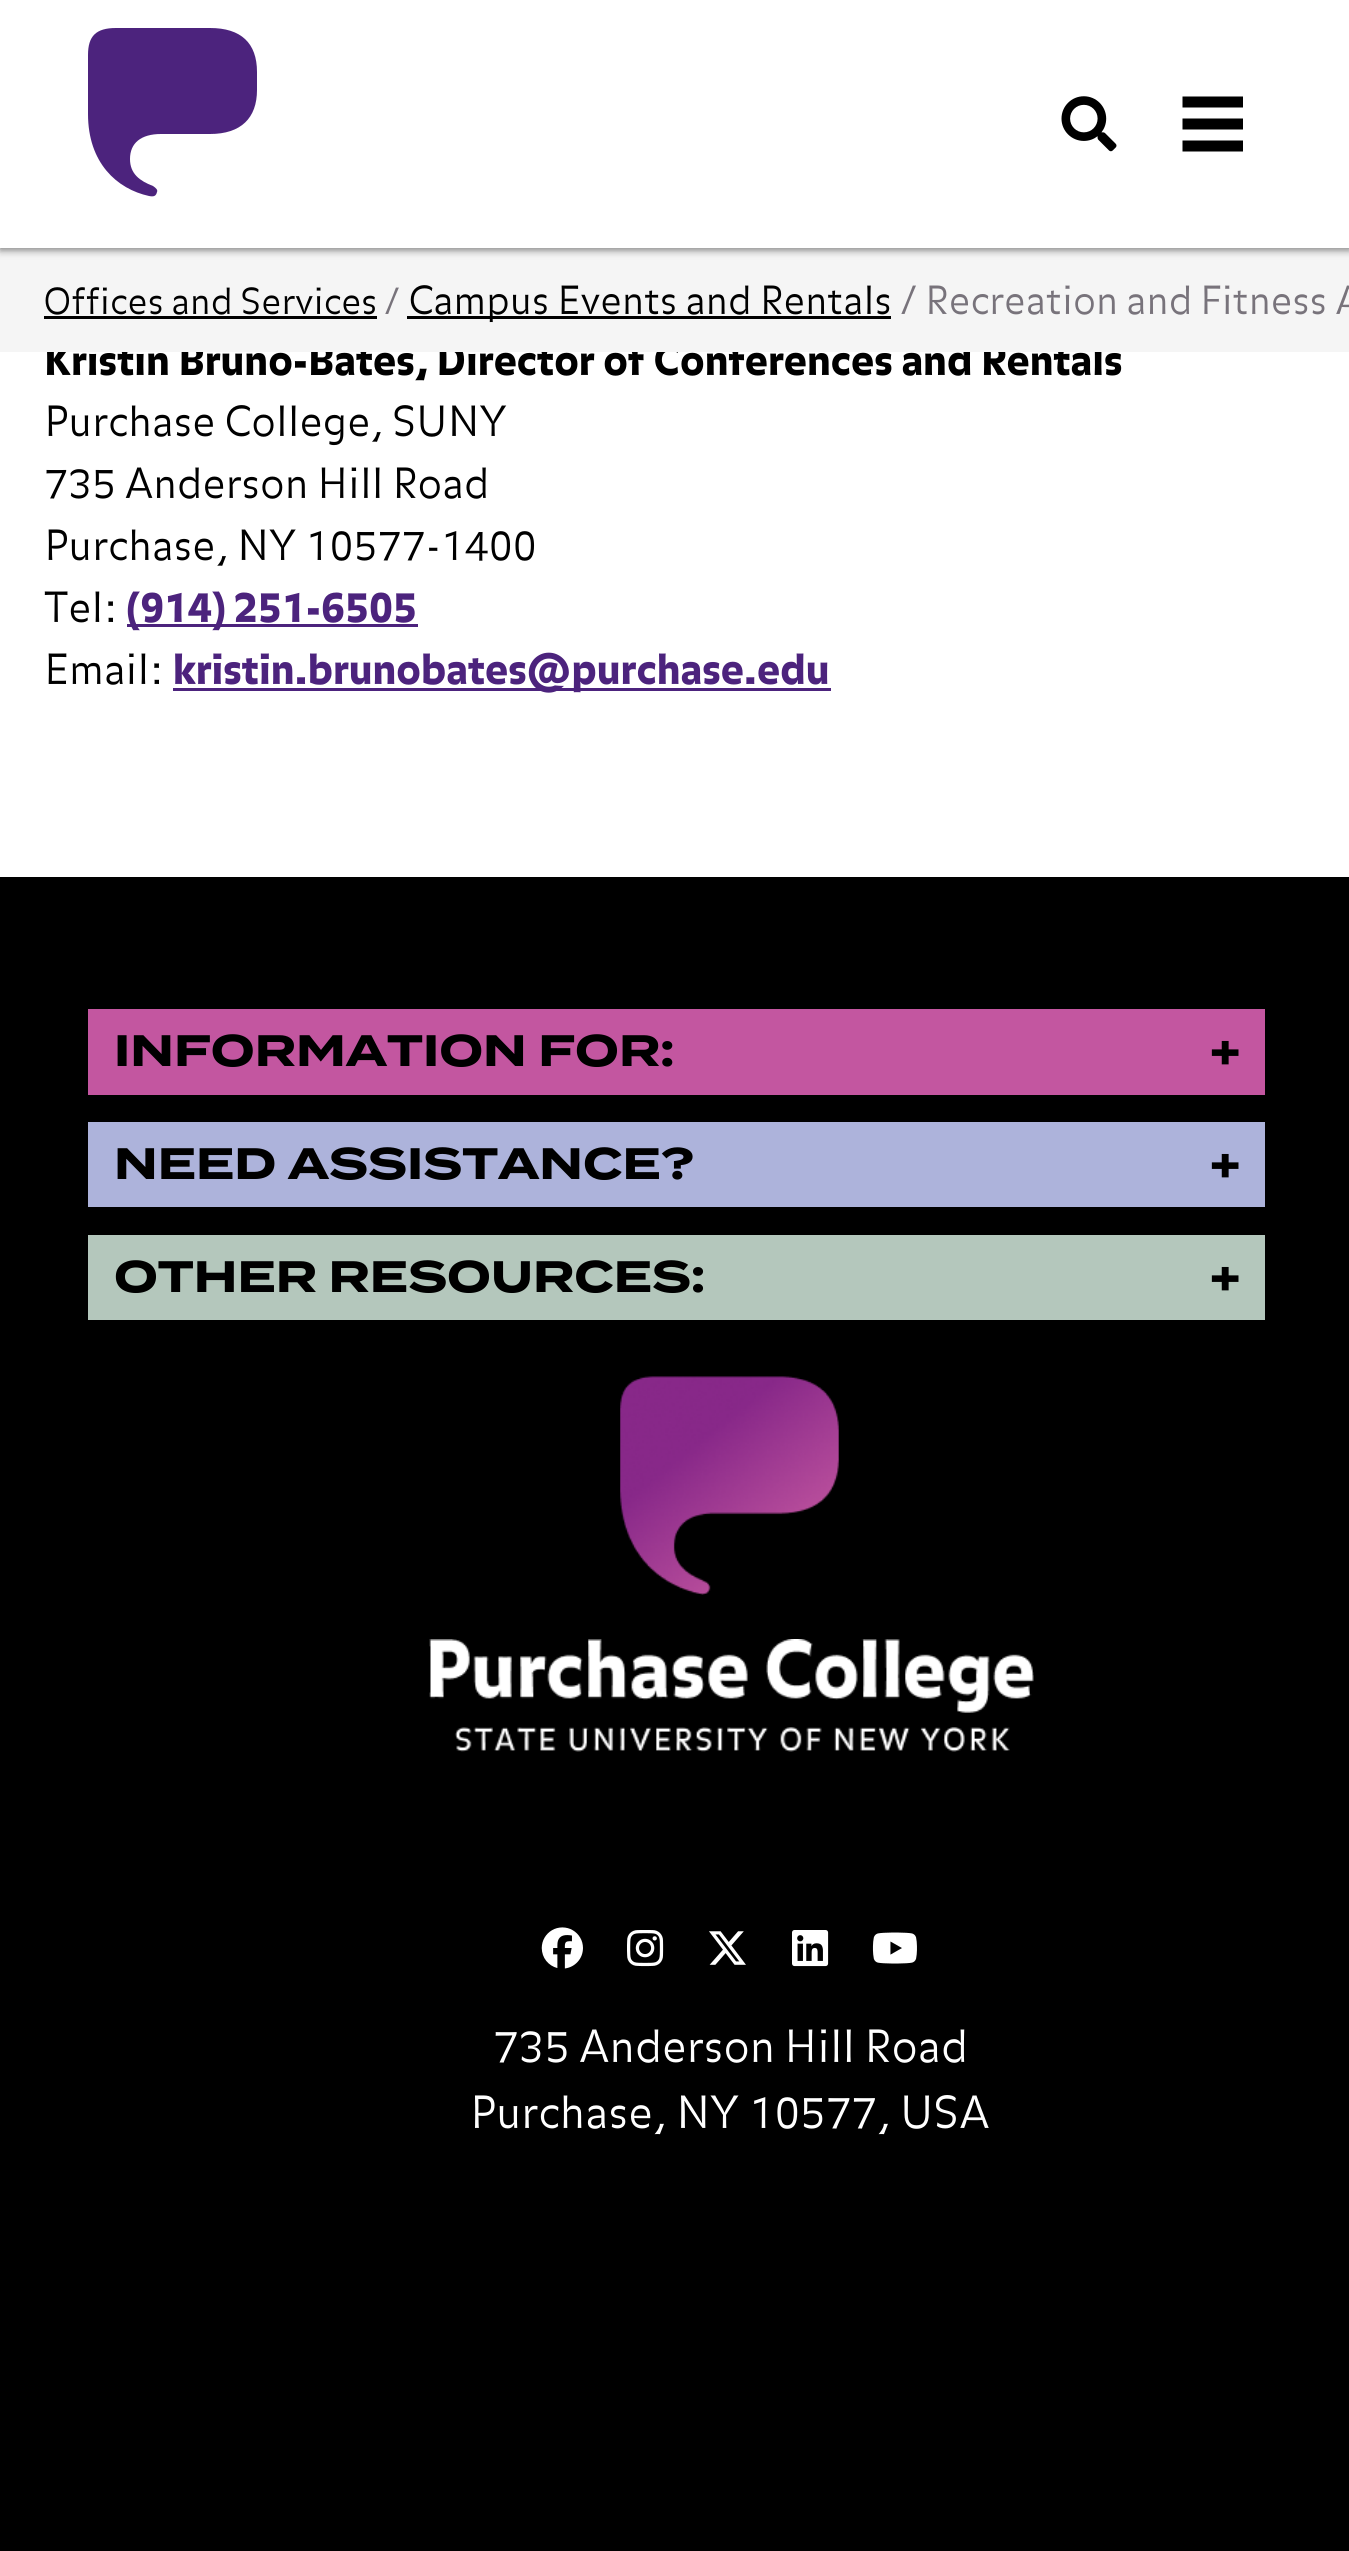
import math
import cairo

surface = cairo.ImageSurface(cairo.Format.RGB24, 1349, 2551)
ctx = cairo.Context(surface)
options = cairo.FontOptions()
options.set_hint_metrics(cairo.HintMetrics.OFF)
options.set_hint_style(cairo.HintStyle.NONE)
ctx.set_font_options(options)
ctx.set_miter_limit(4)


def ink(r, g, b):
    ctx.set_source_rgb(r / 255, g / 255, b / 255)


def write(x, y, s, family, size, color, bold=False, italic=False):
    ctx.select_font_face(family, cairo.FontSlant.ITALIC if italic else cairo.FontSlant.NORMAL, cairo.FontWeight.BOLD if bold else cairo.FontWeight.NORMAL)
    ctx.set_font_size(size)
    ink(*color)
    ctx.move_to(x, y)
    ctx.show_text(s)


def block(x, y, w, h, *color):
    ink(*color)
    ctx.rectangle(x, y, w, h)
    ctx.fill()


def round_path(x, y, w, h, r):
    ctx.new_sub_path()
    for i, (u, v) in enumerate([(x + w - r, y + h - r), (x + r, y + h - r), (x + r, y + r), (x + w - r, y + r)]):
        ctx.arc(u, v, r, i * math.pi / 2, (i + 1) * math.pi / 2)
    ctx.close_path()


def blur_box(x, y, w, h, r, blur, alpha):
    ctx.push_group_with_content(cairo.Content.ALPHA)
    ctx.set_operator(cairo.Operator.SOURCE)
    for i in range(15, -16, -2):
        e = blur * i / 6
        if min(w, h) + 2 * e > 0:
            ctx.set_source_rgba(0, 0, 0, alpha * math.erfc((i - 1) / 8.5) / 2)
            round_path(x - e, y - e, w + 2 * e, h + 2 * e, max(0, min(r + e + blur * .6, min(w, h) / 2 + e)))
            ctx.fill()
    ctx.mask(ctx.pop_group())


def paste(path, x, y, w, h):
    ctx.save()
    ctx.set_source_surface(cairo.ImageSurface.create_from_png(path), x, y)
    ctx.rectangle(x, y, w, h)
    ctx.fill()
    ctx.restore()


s1 = dict(family="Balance", size=41.25, color=(0, 0, 0))
s2 = dict(family="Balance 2", size=35.75, color=(0, 0, 0))
s3 = dict(family="Balance 2", size=35.75, color=(120, 115, 123))
s4 = dict(family="Balance 2", size=38.5, color=(0, 0, 0))
s5 = dict(family="Balance 2", size=38.5, color=(120, 115, 123))
s6 = dict(family="Balance 2", size=41.25, color=(0, 0, 0))
s7 = dict(family="Balance", size=41.25, color=(76, 35, 125))
s8 = dict(family="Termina", size=44, color=(0, 0, 0), bold=True)
s9 = dict(family="Balance 2", size=44, color=(255, 255, 255))

ink(255, 255, 255)
ctx.paint()
write(44, 375, "Kristin Bruno-Bates, Director of Conferences and Rentals", **s1)
block(0, 248, 1349, 104, 245, 245, 245)
ink(0, 0, 0)
blur_box(0, 3, 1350, 247, 0, 4, 0.5)
block(0, 0, 1349, 248, 255, 255, 255)
ink(76, 35, 125)
ctx.new_path()
ctx.move_to(210, 28)
ctx.curve_to(241, 28, 257, 43, 257, 72)
ctx.line_to(257, 90)
ctx.curve_to(257, 118, 241, 134, 210, 134)
ctx.line_to(161, 134)
ctx.curve_to(141, 134, 130, 143, 130, 159)
ctx.curve_to(130, 174, 140, 181, 153, 186)
ctx.curve_to(156, 188, 158, 190, 157, 192)
ctx.curve_to(156, 196, 154, 197, 149, 196)
ctx.curve_to(117, 189, 88, 163, 88, 114)
ctx.line_to(88, 55)
ctx.curve_to(88, 36, 96, 28, 116, 28)
ctx.close_path()
ctx.fill()
paste("pic1.png", 1061, 96, 56, 56)
ctx.new_path()
ctx.move_to(1182.5, 102)
ctx.line_to(1243, 102)
ctx.move_to(1182.5, 124)
ctx.line_to(1243, 124)
ctx.move_to(1182.5, 146)
ctx.line_to(1243, 146)
ink(0, 0, 0)
ctx.set_line_width(11)
ctx.stroke()
write(43, 314, "Offices and Services", **s2)
block(44, 316, 333, 3, 0, 0, 0)
write(384, 314, "/", **s3)
block(407, 316, 484, 3, 0, 0, 0)
write(408, 314, "Campus Events and Rentals", **s4)
write(900, 314, "/ Recreation and Fitness A", **s5)
write(44, 436, "Purchase College, SUNY", **s6)
write(44, 498, "735 Anderson Hill Road", **s6)
write(44, 560, "Purchase, NY 10577-1400", **s6)
write(44, 622, "Tel:", **s6)
block(127, 624, 291, 3, 76, 35, 125)
write(127, 622, "(914) 251-6505", **s7)
write(44, 684, "Email:", **s6)
block(173, 688, 658, 3, 76, 35, 125)
write(173, 684, "kristin.brunobates@purchase.edu", **s7)
block(0, 877, 1349, 1674, 0, 0, 0)
block(88, 1009, 1177, 86, 195, 86, 160)
write(114, 1066, "INFORMATION FOR:", **s8)
write(1209, 1066, "+", **s8)
block(88, 1122, 1177, 85, 173, 179, 219)
write(114, 1179, "NEED ASSISTANCE?", **s8)
write(1209, 1179, "+", **s8)
block(88, 1235, 1177, 85, 180, 199, 188)
write(114, 1292, "OTHER RESOURCES:", **s8)
write(1209, 1292, "+", **s8)
paste("pic2.png", 620, 1376, 219, 219)
paste("pic3.png", 429, 1639, 605, 113)
paste("pic4.png", 541, 1927, 42, 42)
paste("pic5.png", 627, 1930, 37, 37)
paste("pic6.png", 709, 1931, 37, 34)
paste("pic7.png", 792, 1930, 37, 37)
paste("pic8.png", 872, 1932, 45, 32)
write(493, 2062, "735 Anderson Hill Road", **s9)
write(470, 2128, "Purchase, NY 10577, USA", **s9)
surface.write_to_png("screenshot.png")
